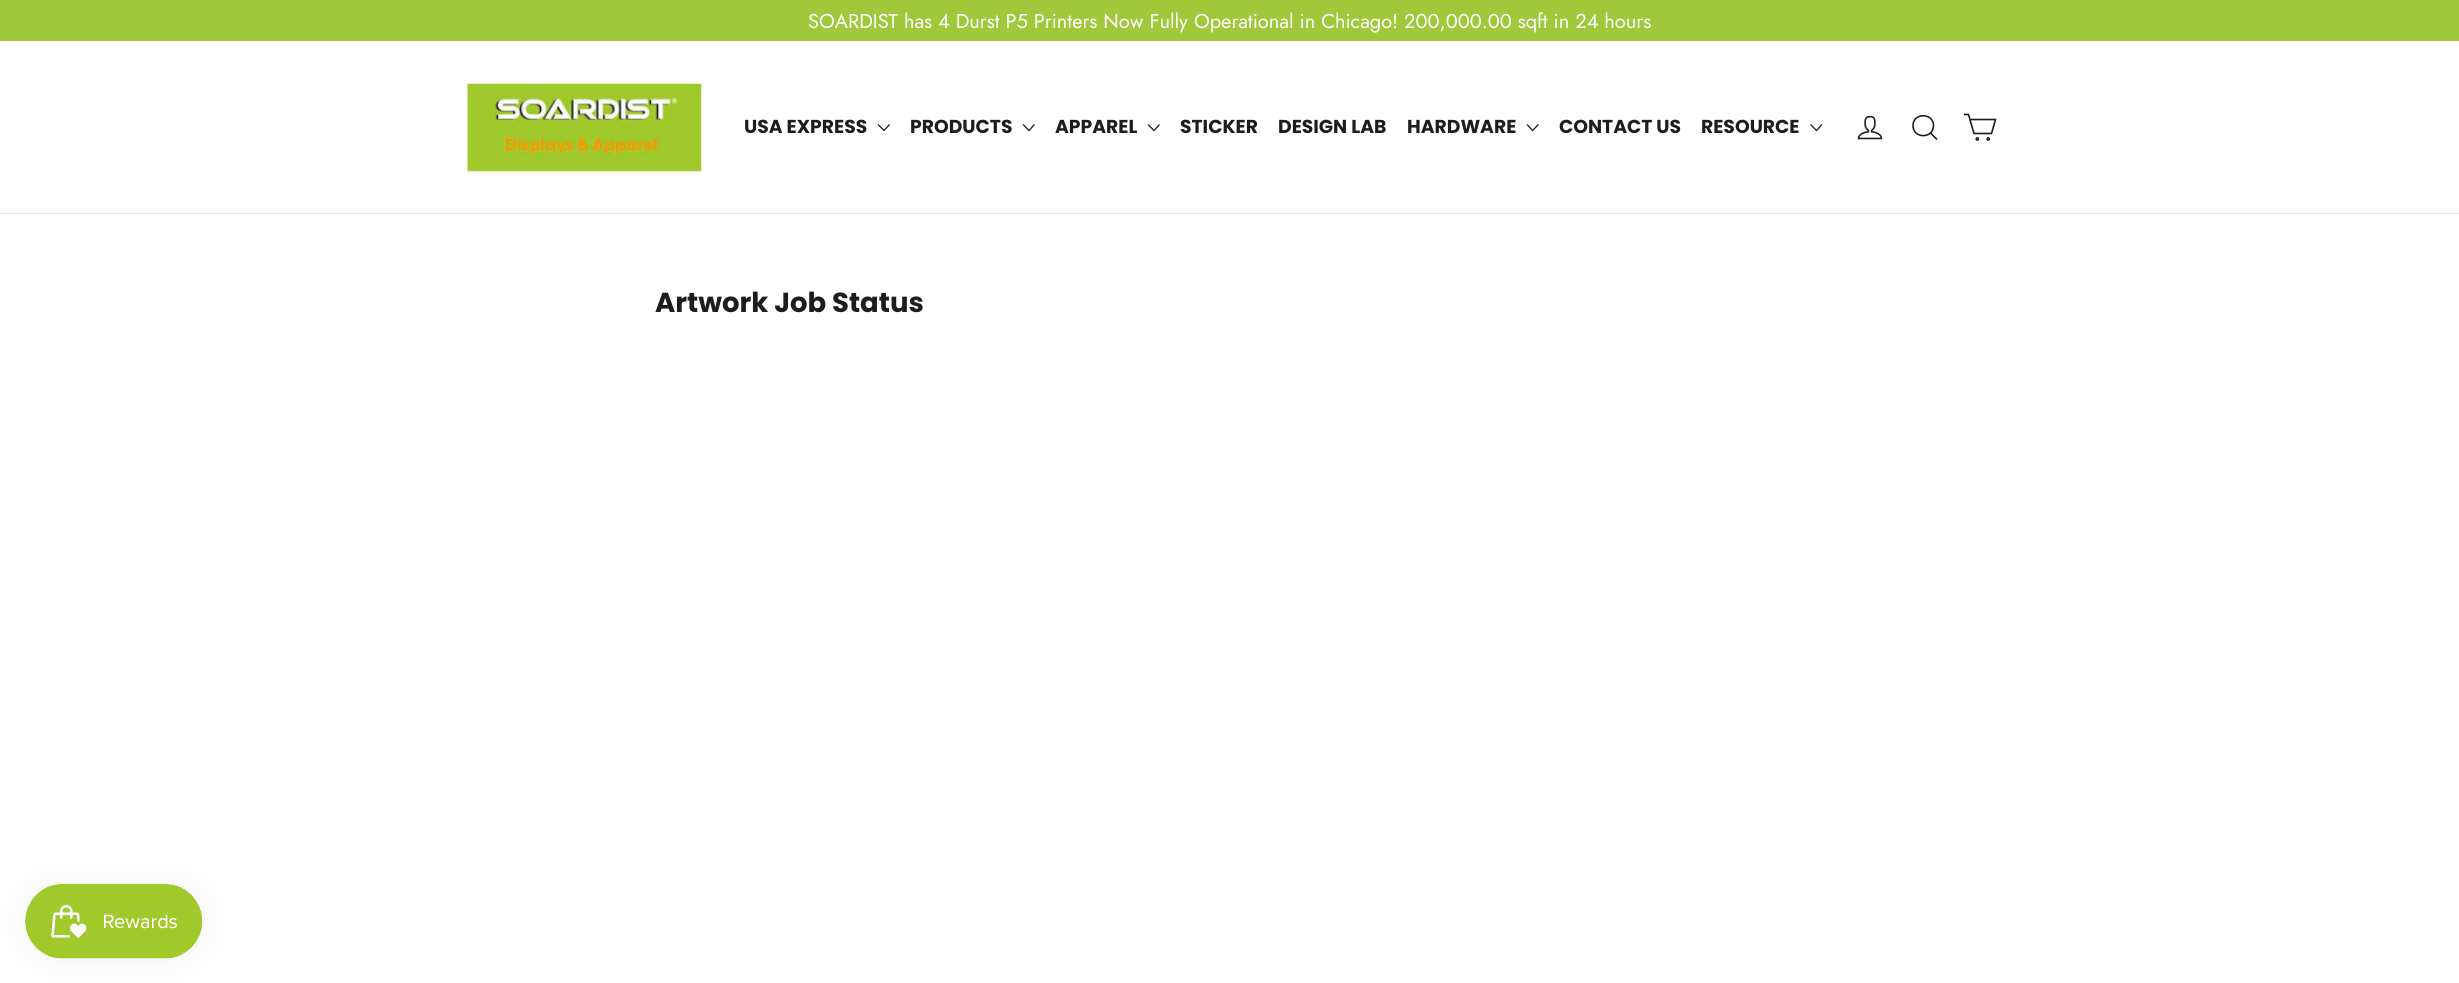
import math
import cairo

surface = cairo.ImageSurface(cairo.Format.RGB24, 2459, 983)
ctx = cairo.Context(surface)
options = cairo.FontOptions()
options.set_hint_metrics(cairo.HintMetrics.OFF)
options.set_hint_style(cairo.HintStyle.NONE)
ctx.set_font_options(options)
ctx.set_miter_limit(4)


def ink(r, g, b):
    ctx.set_source_rgb(r / 255, g / 255, b / 255)


def write(x, y, s, family, size, color, bold=False, italic=False):
    ctx.select_font_face(family, cairo.FontSlant.ITALIC if italic else cairo.FontSlant.NORMAL, cairo.FontWeight.BOLD if bold else cairo.FontWeight.NORMAL)
    ctx.set_font_size(size)
    ink(*color)
    ctx.move_to(x, y)
    ctx.show_text(s)


def block(x, y, w, h, *color):
    ink(*color)
    ctx.rectangle(x, y, w, h)
    ctx.fill()


def round_path(x, y, w, h, r):
    ctx.new_sub_path()
    for i, (u, v) in enumerate([(x + w - r, y + h - r), (x + r, y + h - r), (x + r, y + r), (x + w - r, y + r)]):
        ctx.arc(u, v, r, i * math.pi / 2, (i + 1) * math.pi / 2)
    ctx.close_path()


def blur_box(x, y, w, h, r, blur, alpha):
    ctx.push_group_with_content(cairo.Content.ALPHA)
    ctx.set_operator(cairo.Operator.SOURCE)
    for i in range(15, -16, -2):
        e = blur * i / 6
        if min(w, h) + 2 * e > 0:
            ctx.set_source_rgba(0, 0, 0, alpha * math.erfc((i - 1) / 8.5) / 2)
            round_path(x - e, y - e, w + 2 * e, h + 2 * e, max(0, min(r + e + blur * .6, min(w, h) / 2 + e)))
            ctx.fill()
    ctx.mask(ctx.pop_group())


def paste(path, x, y, w, h):
    ctx.save()
    ctx.set_source_surface(cairo.ImageSurface.create_from_png(path), x, y)
    ctx.rectangle(x, y, w, h)
    ctx.fill()
    ctx.restore()


s1 = dict(family="Jost", size=20, color=(255, 255, 255))
s2 = dict(family="Poppins", size=18.75, color=(28, 29, 29), bold=True)
s3 = dict(family="Poppins", size=27.5, color=(28, 29, 29), bold=True)

ink(255, 255, 255)
ctx.paint()
block(0, 0, 2459, 41, 159, 200, 59)
write(808, 28, "SOARDIST has 4 Durst P5 Printers Now Fully Operational in Chicago! 200,000.00 sqft in 24 hours", **s1)
block(0, 213, 2459, 1, 232, 232, 225)
paste("pic1.png", 467, 83, 235, 89)
write(744, 133, "USA EXPRESS", **s2)
ctx.new_path()
ctx.move_to(878, 124.5)
ctx.line_to(884, 130.5)
ctx.line_to(889.5, 124.5)
ctx.set_line_width(1.3)
ctx.stroke()
write(910, 133, "PRODUCTS", **s2)
ctx.new_path()
ctx.move_to(1023, 124.5)
ctx.line_to(1029, 130.5)
ctx.line_to(1034.5, 124.5)
ctx.stroke()
write(1055, 133, "APPAREL", **s2)
ctx.new_path()
ctx.move_to(1148, 124.5)
ctx.line_to(1154, 130.5)
ctx.line_to(1159.5, 124.5)
ctx.stroke()
write(1180, 133, "STICKER", **s2)
write(1278, 133, "DESIGN LAB", **s2)
write(1407, 133, "HARDWARE", **s2)
ctx.new_path()
ctx.move_to(1527, 124.5)
ctx.line_to(1532.5, 130.5)
ctx.line_to(1538.5, 124.5)
ctx.stroke()
write(1559, 133, "CONTACT US", **s2)
write(1701, 133, "RESOURCE", **s2)
ctx.new_path()
ctx.move_to(1810.5, 124.5)
ctx.line_to(1816.5, 130.5)
ctx.line_to(1822, 124.5)
ctx.stroke()
paste("pic2.png", 1857, 115, 26, 25)
ctx.new_path()
ctx.move_to(1933.5, 125.5)
ctx.curve_to(1933.5, 139, 1913, 139, 1913, 125.5)
ctx.curve_to(1913, 112.5, 1933.5, 112.5, 1933.5, 125.5)
ctx.close_path()
ctx.move_to(1937, 139.5)
ctx.line_to(1930.5, 133)
ctx.set_line_width(1.6)
ctx.stroke()
ctx.new_path()
ctx.move_to(1970, 119.5)
ctx.line_to(1995.5, 119.5)
ctx.line_to(1991.5, 133.5)
ctx.line_to(1974, 133.5)
ctx.line_to(1968.5, 114.5)
ctx.line_to(1964, 114.5)
ctx.stroke()
ctx.arc(1977.3, 139, 1.1, 0, 2 * math.pi)
ctx.stroke()
ctx.arc(1988.2, 139, 1.1, 0, 2 * math.pi)
ctx.stroke()
write(655, 312, "Artwork Job Status", **s3)
ink(0, 0, 0)
blur_box(25, 884, 178, 75, 37.5, 15.5, 0.05)
paste("pic3.png", 25, 884, 178, 75)
surface.write_to_png("screenshot.png")
